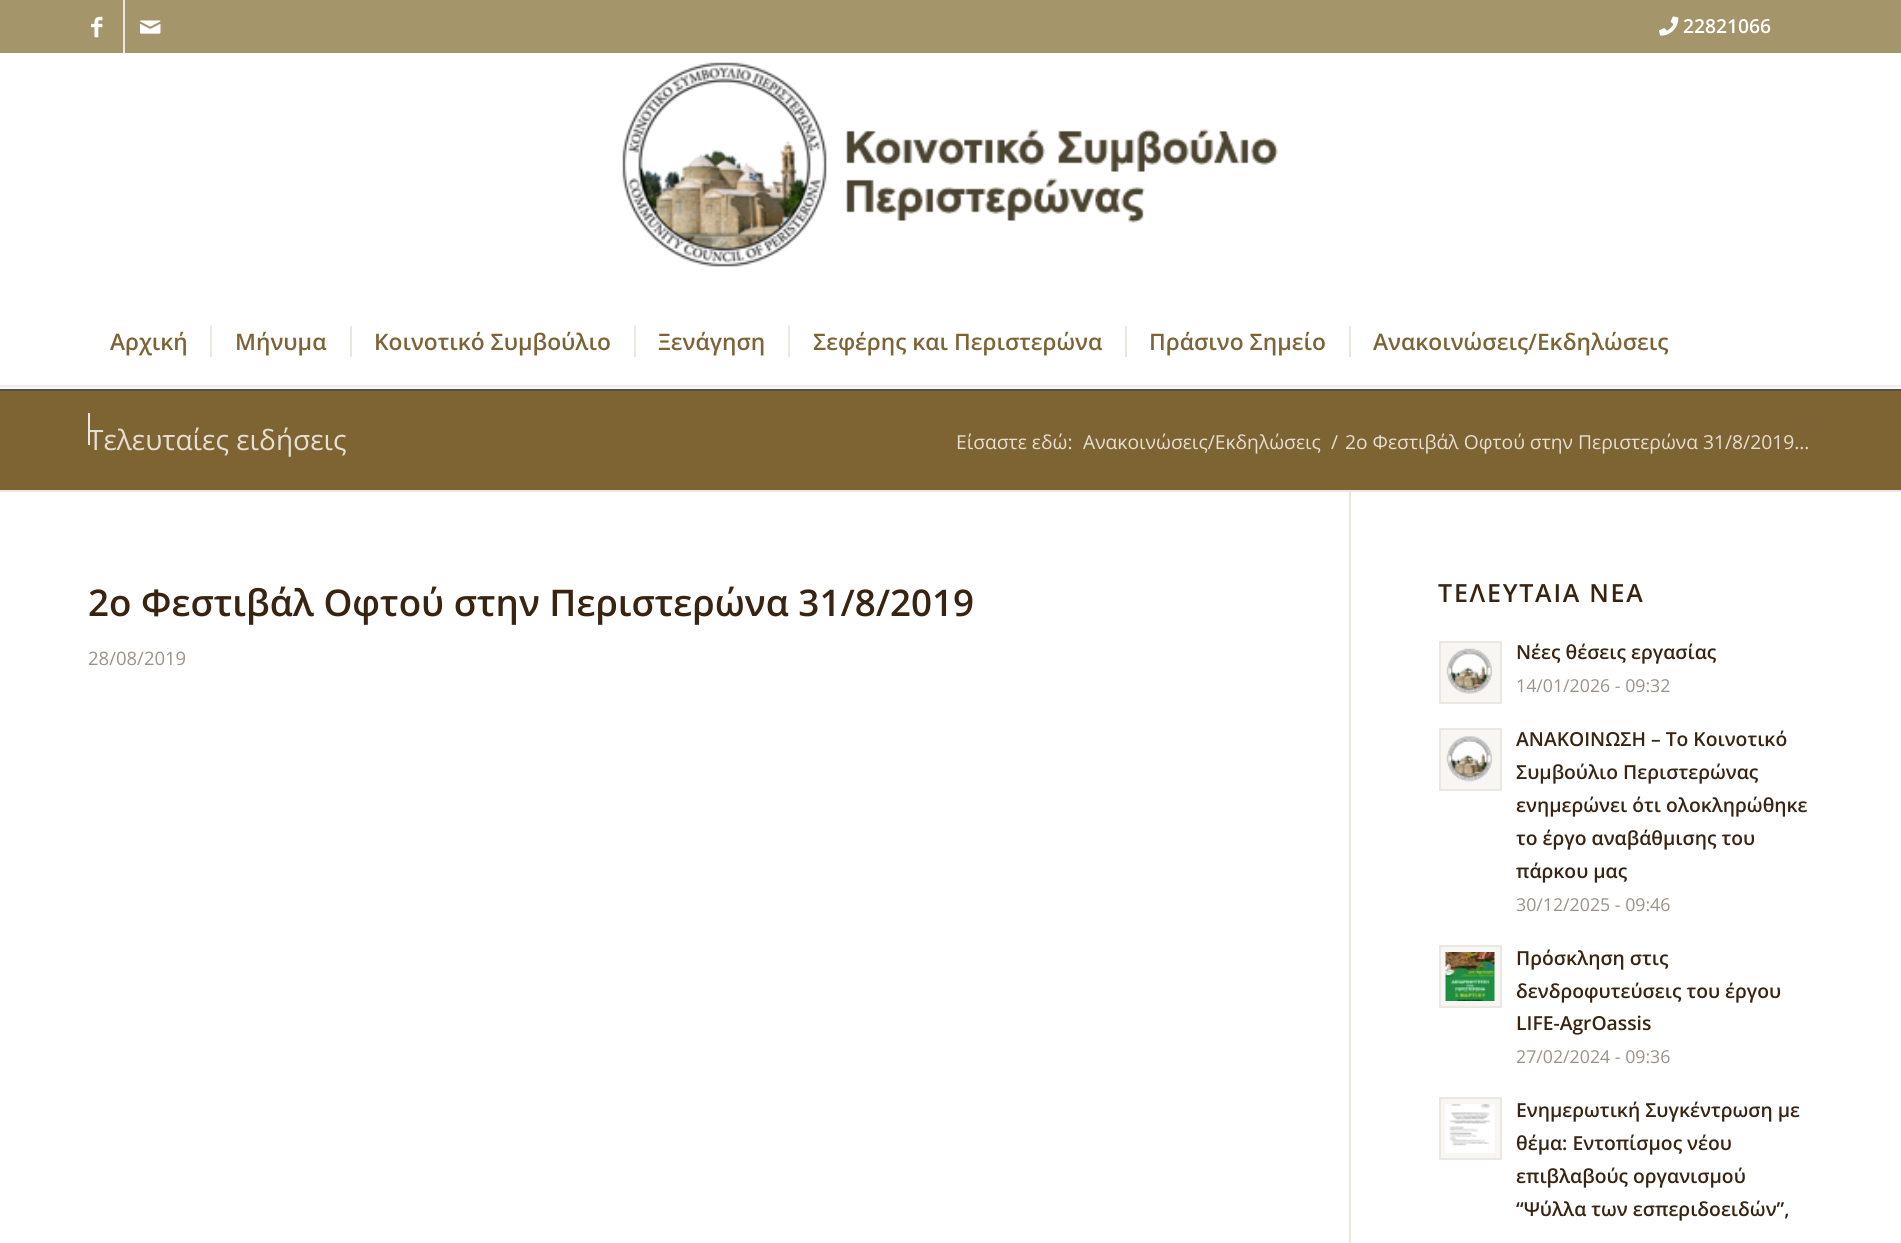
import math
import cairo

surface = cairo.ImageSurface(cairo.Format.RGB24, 1901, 1243)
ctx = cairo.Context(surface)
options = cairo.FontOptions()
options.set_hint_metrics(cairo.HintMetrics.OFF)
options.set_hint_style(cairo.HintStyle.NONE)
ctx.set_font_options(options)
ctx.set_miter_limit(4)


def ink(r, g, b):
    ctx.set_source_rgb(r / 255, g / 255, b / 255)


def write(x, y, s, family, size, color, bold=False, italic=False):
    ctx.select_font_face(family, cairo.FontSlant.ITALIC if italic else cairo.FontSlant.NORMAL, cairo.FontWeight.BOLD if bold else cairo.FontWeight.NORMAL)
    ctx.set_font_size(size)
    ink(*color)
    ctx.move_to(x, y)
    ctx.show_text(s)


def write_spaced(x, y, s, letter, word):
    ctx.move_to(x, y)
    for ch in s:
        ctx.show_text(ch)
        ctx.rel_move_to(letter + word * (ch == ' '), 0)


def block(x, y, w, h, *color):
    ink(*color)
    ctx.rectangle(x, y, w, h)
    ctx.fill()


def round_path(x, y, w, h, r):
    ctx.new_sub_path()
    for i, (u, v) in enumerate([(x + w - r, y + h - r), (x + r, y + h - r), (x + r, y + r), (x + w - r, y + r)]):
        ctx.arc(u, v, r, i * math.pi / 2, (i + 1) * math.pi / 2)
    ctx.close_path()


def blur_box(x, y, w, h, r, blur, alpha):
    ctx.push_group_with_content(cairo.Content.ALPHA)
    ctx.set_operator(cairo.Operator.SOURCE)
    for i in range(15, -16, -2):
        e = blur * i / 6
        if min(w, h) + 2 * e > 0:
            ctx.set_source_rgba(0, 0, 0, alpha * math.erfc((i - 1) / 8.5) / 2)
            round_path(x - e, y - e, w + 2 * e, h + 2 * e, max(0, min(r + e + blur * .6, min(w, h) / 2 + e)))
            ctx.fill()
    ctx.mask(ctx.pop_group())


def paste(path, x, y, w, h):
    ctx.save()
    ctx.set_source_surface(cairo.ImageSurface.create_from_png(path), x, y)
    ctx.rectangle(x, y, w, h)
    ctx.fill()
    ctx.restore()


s1 = dict(family="Open Sans SemiBold", size=19.25, color=(255, 255, 255))
s2 = dict(family="Open Sans SemiBold", size=22.75, color=(124, 100, 55))
s3 = dict(family="Open Sans", size=28, color=(229, 224, 211))
s4 = dict(family="Open Sans", size=19.25, color=(229, 224, 211))
s5 = dict(family="Open Sans SemiBold", size=36.75, color=(56, 36, 16))
s6 = dict(family="Open Sans", size=18.5, color=(156, 146, 136))
s7 = dict(family="Open Sans SemiBold", size=19.3, color=(56, 36, 16))
s8 = dict(family="Open Sans", size=17.75, color=(156, 146, 136))

ink(255, 255, 255)
ctx.paint()
block(0, 391, 1901, 99, 125, 100, 50)
block(0, 389, 1901, 2, 87, 81, 73)
ctx.save()
ctx.rectangle(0, 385, 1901, 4)
ctx.clip()
ink(0, 0, 0)
blur_box(-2, -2, 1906, 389, 0, 2, 0.1)
ctx.restore()
block(0, 0, 1901, 53, 165, 149, 107)
block(123, 0, 2, 53, 235, 232, 226)
paste("pic1.png", 91, 16, 12, 22)
paste("pic2.png", 140, 20, 21, 14)
paste("pic3.png", 1659, 16, 20, 20)
write(1683, 33, "22821066", **s1)
paste("pic4.png", 622, 62, 656, 205)
write(110, 350, "Αρχική", **s2)
write(235, 350, "Μήνυμα", **s2)
block(210, 326, 2, 31, 235, 232, 226)
write(374, 350, "Κοινοτικό Συμβούλιο", **s2)
block(350, 326, 2, 31, 235, 232, 226)
write(658, 350, "Ξενάγηση", **s2)
block(634, 326, 2, 31, 235, 232, 226)
write(813, 350, "Σεφέρης και Περιστερώνα", **s2)
block(788, 326, 2, 31, 235, 232, 226)
write(1149, 350, "Πράσινο Σημείο", **s2)
block(1125, 326, 2, 31, 235, 232, 226)
write(1373, 350, "Ανακοινώσεις/Εκδηλώσεις", **s2)
block(1349, 326, 2, 31, 235, 232, 226)
write(88, 450, "Τελευταίες ειδήσεις", **s3)
block(88, 413, 2, 32, 235, 232, 226)
write(1345, 449, "2ο Φεστιβάλ Οφτού στην Περιστερώνα 31/8/2019...", **s4)
paste("pic5.png", 1792, 416, 23, 23)
write(956, 449, "Είσαστε εδώ:", **s4)
write(1083, 449, "Ανακοινώσεις/Εκδηλώσεις", **s4)
write(1331, 449, "/", **s4)
block(0, 490, 1901, 2, 235, 232, 226)
block(1349, 492, 2, 751, 235, 232, 226)
write(88, 616, "2ο Φεστιβάλ Οφτού στην Περιστερώνα 31/8/2019", **s5)
write(88, 665, "28/08/2019", **s6)
ctx.select_font_face("Open Sans SemiBold")
ctx.set_font_size(25)
ink(56, 36, 16)
write_spaced(1438, 602, "ΤΕΛΕΥΤΑΙΑ ΝΕΑ", 1.75, 0)
ink(248, 246, 242)
ctx.rectangle(1440, 642, 61, 61)
ctx.fill_preserve()
ink(235, 232, 226)
ctx.stroke()
paste("pic6.png", 1446, 648, 46, 46)
write(1516, 659, "Νέες θέσεις εργασίας", **s7)
write(1516, 692, "14/01/2026 - 09:32", **s8)
ink(248, 246, 242)
ctx.rectangle(1440, 729, 61, 61)
ctx.fill_preserve()
ink(235, 232, 226)
ctx.stroke()
paste("pic7.png", 1446, 736, 46, 46)
write(1516, 746, "ΑΝΑΚΟΙΝΩΣΗ – Το Κοινοτικό", **s7)
write(1516, 779, "Συμβούλιο Περιστερώνας", **s7)
write(1516, 812, "ενημερώνει ότι ολοκληρώθηκε", **s7)
write(1516, 845, "το έργο αναβάθμισης του", **s7)
write(1516, 878, "πάρκου μας", **s7)
write(1516, 911, "30/12/2025 - 09:46", **s8)
ink(248, 246, 242)
ctx.rectangle(1440, 946, 61, 61)
ctx.fill_preserve()
ink(235, 232, 226)
ctx.stroke()
paste("pic8.png", 1445, 952, 50, 49)
write(1516, 965, "Πρόσκληση στις", **s7)
write(1516, 998, "δενδροφυτεύσεις του έργου", **s7)
write(1516, 1030, "LIFE-AgrOassis", **s7)
write(1516, 1063, "27/02/2024 - 09:36", **s8)
ink(248, 246, 242)
ctx.rectangle(1440, 1098, 61, 61)
ctx.fill_preserve()
ink(235, 232, 226)
ctx.stroke()
paste("pic9.png", 1445, 1104, 50, 49)
write(1516, 1117, "Ενημερωτική Συγκέντρωση με", **s7)
write(1516, 1150, "θέμα: Εντοπίσμος νέου", **s7)
write(1516, 1183, "επιβλαβούς οργανισμού", **s7)
write(1516, 1216, "“Ψύλλα των εσπεριδοειδών”,", **s7)
surface.write_to_png("screenshot.png")
